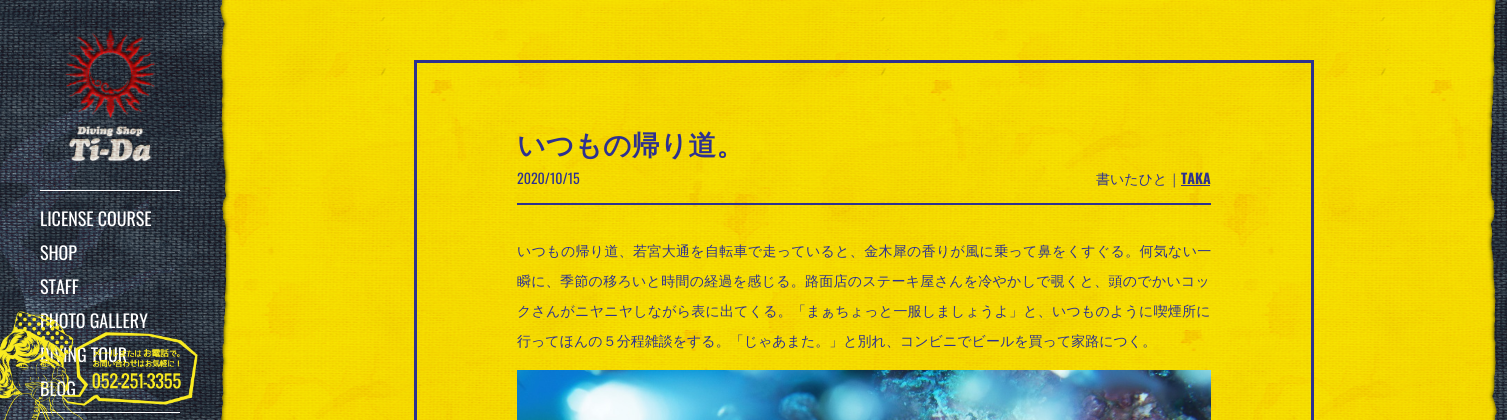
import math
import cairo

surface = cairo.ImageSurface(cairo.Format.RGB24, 1507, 420)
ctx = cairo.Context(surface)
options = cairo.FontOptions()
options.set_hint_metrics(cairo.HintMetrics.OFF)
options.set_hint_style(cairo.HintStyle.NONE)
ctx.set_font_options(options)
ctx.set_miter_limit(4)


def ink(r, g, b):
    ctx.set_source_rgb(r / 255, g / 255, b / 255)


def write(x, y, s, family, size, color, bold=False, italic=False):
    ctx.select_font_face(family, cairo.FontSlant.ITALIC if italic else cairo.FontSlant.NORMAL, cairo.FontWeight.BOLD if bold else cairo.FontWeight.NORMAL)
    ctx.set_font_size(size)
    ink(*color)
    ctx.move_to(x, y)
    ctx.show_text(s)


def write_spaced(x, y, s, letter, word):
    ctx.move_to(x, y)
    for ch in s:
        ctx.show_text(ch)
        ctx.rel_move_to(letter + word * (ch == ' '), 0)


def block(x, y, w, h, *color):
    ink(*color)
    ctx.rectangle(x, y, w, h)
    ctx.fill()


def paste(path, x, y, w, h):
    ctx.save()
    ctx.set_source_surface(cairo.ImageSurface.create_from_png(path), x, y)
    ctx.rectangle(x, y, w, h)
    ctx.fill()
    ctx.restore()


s1 = dict(family="Oswald", size=18, color=(255, 255, 255))
s2 = dict(family="WenQuanYi Zen Hei", size=28, color=(46, 49, 143), bold=True)
s3 = dict(family="Oswald", size=14, color=(46, 49, 143))
s4 = dict(family="WenQuanYi Zen Hei Medium", size=14, color=(46, 49, 143))
s5 = dict(family="Oswald", size=14, color=(46, 49, 143), bold=True)

ink(255, 255, 255)
ctx.paint()
paste("pic1.png", 220, 0, 1277, 420)
paste("pic5.png", 220, 0, 1276, 9)
paste("pic2.png", 0, 0, 230, 420)
paste("pic3.png", 64, 27, 92, 135)
block(40, 190, 140, 1, 255, 255, 255)
write(40, 226, "LICENSE COURSE", **s1)
write(40, 260, "SHOP", **s1)
write(40, 294, "STAFF", **s1)
write(40, 328, "PHOTO GALLERY", **s1)
write(40, 362, "DIVING TOUR", **s1)
write(40, 396, "BLOG", **s1)
block(40, 412, 140, 1, 255, 255, 255)
paste("pic4.png", 0, 311, 198, 109)
ctx.rectangle(415.5, 61.5, 897, 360)
ink(46, 49, 143)
ctx.set_line_width(3)
ctx.stroke()
write(517, 155, "いつもの帰り道。", **s2)
block(517, 203, 694, 2, 46, 49, 143)
write(517, 184, "2020/10/15", **s3)
write(1096, 184, "書いたひと｜", **s4)
write(1181, 184, "TAKA", **s5)
block(1181, 185, 29, 1, 46, 49, 143)
ctx.select_font_face("WenQuanYi Zen Hei Medium")
write_spaced(517, 256, "いつもの帰り道、若宮大通を自転車で走っていると、金木犀の香りが風に乗って鼻をくすぐる。何気ない一", 0.3, 0)
write_spaced(517, 286, "瞬に、季節の移ろいと時間の経過を感じる。路面店のステーキ屋さんを冷やかしで覗くと、頭のでかいコッ", 0.25, 0)
write_spaced(517, 316, "クさんがニヤニヤしながら表に出てくる。「まぁちょっと一服しましょうよ」と、いつものように喫煙所に", 0.2, 0)
write(517, 346, "行ってほんの５分程雑談をする。「じゃあまた。」と別れ、コンビニでビールを買って家路につく。", **s4)
paste("pic6.png", 517, 370, 694, 50)
paste("pic7.png", 1487, 0, 20, 420)
surface.write_to_png("screenshot.png")
